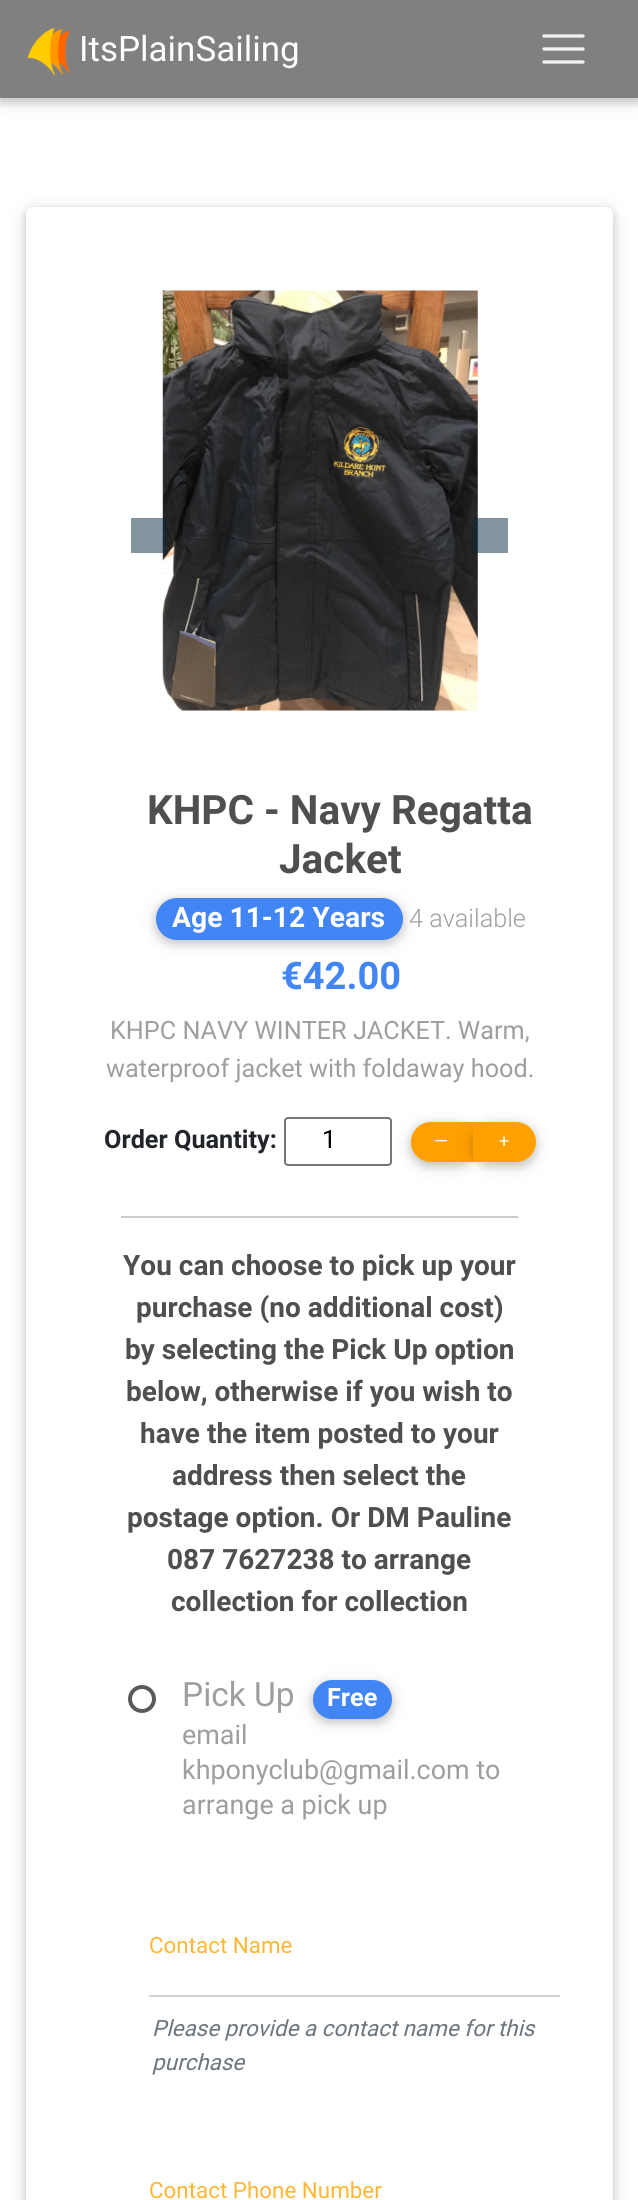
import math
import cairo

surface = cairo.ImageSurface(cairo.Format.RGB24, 638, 2200)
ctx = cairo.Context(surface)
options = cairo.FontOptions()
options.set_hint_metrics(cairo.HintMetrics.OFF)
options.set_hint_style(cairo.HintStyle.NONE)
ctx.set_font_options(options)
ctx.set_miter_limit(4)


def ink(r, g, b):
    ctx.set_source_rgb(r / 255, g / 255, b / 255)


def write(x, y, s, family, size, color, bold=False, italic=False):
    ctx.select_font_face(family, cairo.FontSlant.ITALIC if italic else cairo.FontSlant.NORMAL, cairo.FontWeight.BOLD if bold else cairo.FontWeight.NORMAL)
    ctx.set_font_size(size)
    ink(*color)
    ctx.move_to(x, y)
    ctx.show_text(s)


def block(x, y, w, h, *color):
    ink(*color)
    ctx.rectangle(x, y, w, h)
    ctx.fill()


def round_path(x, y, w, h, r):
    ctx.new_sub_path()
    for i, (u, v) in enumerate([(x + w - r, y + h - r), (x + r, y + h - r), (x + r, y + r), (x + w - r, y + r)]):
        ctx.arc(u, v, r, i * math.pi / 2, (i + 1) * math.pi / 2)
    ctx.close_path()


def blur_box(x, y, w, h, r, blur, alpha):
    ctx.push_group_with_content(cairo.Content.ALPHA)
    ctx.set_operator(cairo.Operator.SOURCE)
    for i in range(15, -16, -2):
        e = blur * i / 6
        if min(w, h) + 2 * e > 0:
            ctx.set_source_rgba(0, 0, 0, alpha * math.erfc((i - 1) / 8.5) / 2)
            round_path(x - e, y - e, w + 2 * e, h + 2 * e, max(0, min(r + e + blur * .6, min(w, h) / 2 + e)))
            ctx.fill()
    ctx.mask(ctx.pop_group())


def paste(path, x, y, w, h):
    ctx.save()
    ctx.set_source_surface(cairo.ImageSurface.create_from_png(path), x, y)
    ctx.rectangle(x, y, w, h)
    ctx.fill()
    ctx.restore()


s1 = dict(family="Roboto", size=35, color=(255, 255, 255))
s2 = dict(family="Roboto", size=40.5, color=(79, 79, 79), bold=True)
s3 = dict(family="Roboto", size=28.25, color=(255, 255, 255), bold=True)
s4 = dict(family="Roboto Light", size=25.25, color=(158, 158, 158))
s5 = dict(family="Roboto", size=38, color=(66, 133, 244), bold=True)
s6 = dict(family="Roboto", size=25.25, color=(158, 158, 158))
s7 = dict(family="Roboto", size=25.25, color=(33, 37, 41), bold=True)
s8 = dict(family="Roboto", size=25.25, color=(0, 0, 0))
s9 = dict(family="Roboto", size=18, color=(255, 255, 255))
s10 = dict(family="Roboto", size=28, color=(79, 79, 79), bold=True)
s11 = dict(family="Roboto", size=33.5, color=(158, 158, 158))
s12 = dict(family="Roboto", size=25.25, color=(255, 255, 255), bold=True)
s13 = dict(family="Roboto", size=26.9, color=(158, 158, 158))
s14 = dict(family="Roboto", size=22.4, color=(255, 183, 51))
s15 = dict(family="Roboto", size=22.4, color=(108, 117, 125), italic=True)

ink(255, 255, 255)
ctx.paint()
ink(0, 0, 0)
blur_box(0, 4, 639, 98, 0, 9, 0.12)
blur_box(0, 4, 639, 98, 0, 4.5, 0.16)
block(0, 0, 638, 98, 128, 128, 128)
paste("pic1.png", 28, 28, 42, 48)
write(79, 61, "ItsPlainSailing", **s1)
ctx.new_path()
ctx.move_to(544, 36)
ctx.line_to(583, 36)
ctx.move_to(544, 49)
ctx.line_to(583, 49)
ctx.move_to(544, 62)
ctx.line_to(583, 62)
ink(242, 242, 242)
ctx.set_line_width(3.3)
ctx.set_line_cap(cairo.LineCap.ROUND)
ctx.stroke()
ink(0, 0, 0)
blur_box(26, 210, 587, 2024, 7, 9, 0.12)
blur_box(26, 210, 587, 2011, 7, 4.5, 0.16)
ink(255, 255, 255)
round_path(26, 207, 587, 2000, 7)
ctx.fill()
paste("pic2.png", 162, 290, 316, 421)
ctx.set_source_rgba(0.043, 0.165, 0.255, 0.5)
ctx.rectangle(131, 518, 35, 35)
ctx.fill()
ctx.rectangle(473, 518, 35, 35)
ctx.fill()
write(147, 824, "KHPC - Navy Regatta", **s2)
write(279, 873, "Jacket", **s2)
ink(0, 0, 0)
blur_box(156, 901, 247, 42, 21, 9, 0.12)
blur_box(156, 901, 247, 42, 21, 4.5, 0.16)
ink(66, 133, 244)
round_path(156, 898, 247, 42, 21)
ctx.fill()
write(172, 927, "Age 11-12 Years", **s3)
write(409, 927, "4 available", **s4)
write(281, 989, "€42.00", **s5)
write(110, 1039, "KHPC NAVY WINTER JACKET. Warm,", **s6)
write(106, 1077, "waterproof jacket with foldaway hood.", **s6)
write(104, 1148, "Order Quantity:", **s7)
round_path(285, 1118, 106, 47, 3)
ink(118, 118, 118)
ctx.set_line_width(2)
ctx.set_line_cap(cairo.LineCap.BUTT)
ctx.stroke()
write(322, 1148, "1", **s8)
ink(0, 0, 0)
blur_box(411, 1125, 63, 41, 20.5, 9, 0.12)
blur_box(411, 1125, 63, 41, 20.5, 4.5, 0.16)
ink(255, 160, 0)
ctx.new_path()
ctx.move_to(431, 1122)
ctx.line_to(474, 1122)
ctx.line_to(474, 1162)
ctx.line_to(431, 1162)
ctx.curve_to(420, 1162, 411, 1153, 411, 1142)
ctx.curve_to(411, 1131, 420, 1122, 431, 1122)
ctx.close_path()
ctx.fill()
write(434, 1147, "—", **s9)
ink(0, 0, 0)
blur_box(473, 1125, 63, 41, 20.5, 9, 0.12)
blur_box(473, 1125, 63, 41, 20.5, 4.5, 0.16)
ink(255, 160, 0)
ctx.new_path()
ctx.move_to(473, 1122)
ctx.line_to(516, 1122)
ctx.curve_to(527, 1122, 536, 1131, 536, 1142)
ctx.curve_to(536, 1153, 527, 1162, 516, 1162)
ctx.line_to(473, 1162)
ctx.close_path()
ctx.fill()
write(499, 1147, "+", **s9)
block(121, 1216, 397, 2, 204, 204, 204)
write(123, 1275, "You can choose to pick up your", **s10)
write(136, 1317, "purchase (no additional cost)", **s10)
write(125, 1359, "by selecting the Pick Up option", **s10)
write(126, 1401, "below, otherwise if you wish to", **s10)
write(140, 1443, "have the item posted to your", **s10)
write(172, 1485, "address then select the", **s10)
write(127, 1527, "postage option. Or DM Pauline", **s10)
write(167, 1569, "087 7627238 to arrange", **s10)
write(171, 1611, "collection for collection", **s10)
ctx.new_path()
ctx.arc(142, 1699, 12, 0, 2 * math.pi)
ink(90, 90, 90)
ctx.set_line_width(4)
ctx.stroke()
write(182, 1706, "Pick Up", **s11)
ink(0, 0, 0)
blur_box(313, 1684, 79, 38, 19, 9, 0.12)
blur_box(313, 1684, 79, 38, 19, 4.5, 0.16)
ink(66, 133, 244)
round_path(313, 1680, 79, 39, 19.5)
ctx.fill()
write(327, 1706, "Free", **s12)
write(182, 1744, "email", **s13)
write(182, 1779, "khponyclub@gmail.com to", **s13)
write(182, 1814, "arrange a pick up", **s13)
write(149, 1953, "Contact Name", **s14)
block(149, 1995, 411, 2, 206, 212, 218)
write(152, 2036, "Please provide a contact name for this", **s15)
write(152, 2070, "purchase", **s15)
write(149, 2198, "Contact Phone Number", **s14)
surface.write_to_png("screenshot.png")
